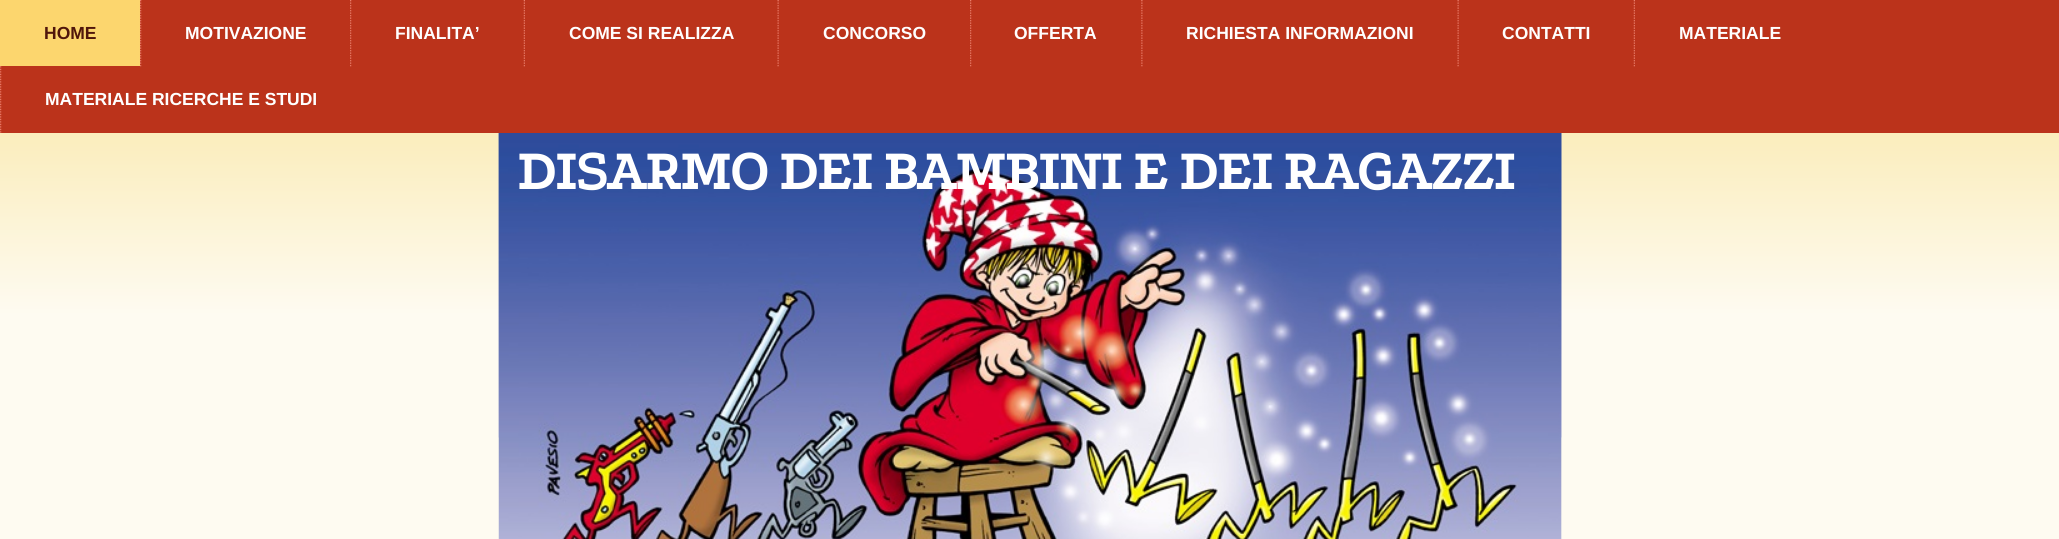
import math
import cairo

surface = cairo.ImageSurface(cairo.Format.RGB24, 2059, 539)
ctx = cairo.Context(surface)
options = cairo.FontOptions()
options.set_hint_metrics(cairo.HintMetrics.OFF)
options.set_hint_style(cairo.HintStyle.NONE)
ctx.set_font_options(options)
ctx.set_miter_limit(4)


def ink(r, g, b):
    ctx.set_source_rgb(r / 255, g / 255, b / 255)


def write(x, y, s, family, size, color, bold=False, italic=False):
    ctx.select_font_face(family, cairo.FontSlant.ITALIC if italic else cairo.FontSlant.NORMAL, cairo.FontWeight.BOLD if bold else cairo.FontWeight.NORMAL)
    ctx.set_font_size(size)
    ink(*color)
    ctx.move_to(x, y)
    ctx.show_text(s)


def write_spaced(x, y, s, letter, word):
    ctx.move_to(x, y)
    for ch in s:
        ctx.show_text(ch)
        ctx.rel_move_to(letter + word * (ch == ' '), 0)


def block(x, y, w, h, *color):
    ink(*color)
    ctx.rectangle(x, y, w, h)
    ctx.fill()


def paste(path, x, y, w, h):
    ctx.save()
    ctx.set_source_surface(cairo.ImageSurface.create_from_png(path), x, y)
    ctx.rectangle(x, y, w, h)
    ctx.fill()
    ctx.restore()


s1 = dict(family="Liberation Sans", size=17.5, color=(80, 22, 11), bold=True)
s2 = dict(family="Liberation Sans", size=17.5, color=(255, 255, 255), bold=True)

ink(255, 255, 255)
ctx.paint()
gradient = cairo.LinearGradient(1030, 0, 1030, 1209)
gradient.add_color_stop_rgba(0, 0.973, 0.89, 0.588, 1)
gradient.add_color_stop_rgba(0.26, 0.996, 0.984, 0.945, 1)
ctx.set_source(gradient)
ctx.rectangle(0, 133, 2059, 406)
ctx.fill()
block(0, 0, 2059, 133, 187, 51, 27)
block(0, 0, 140, 66, 252, 214, 110)
write(44, 39, "HOME", **s1)
paste("pic1.png", 140, 0, 2, 67)
write(185, 39, "MOTIVAZIONE", **s2)
paste("pic1.png", 350, 0, 2, 67)
write(395, 39, "FINALITA’", **s2)
paste("pic2.png", 523, 0, 2, 67)
write(569, 39, "COME SI REALIZZA", **s2)
paste("pic3.png", 777, 0, 2, 67)
write(823, 39, "CONCORSO", **s2)
paste("pic1.png", 970, 0, 2, 67)
write(1014, 39, "OFFERTA", **s2)
paste("pic4.png", 1141, 0, 2, 67)
write(1186, 39, "RICHIESTA INFORMAZIONI", **s2)
paste("pic3.png", 1457, 0, 2, 67)
write(1502, 39, "CONTATTI", **s2)
paste("pic2.png", 1633, 0, 2, 67)
write(1679, 39, "MATERIALE", **s2)
paste("pic5.png", 0, 66, 2, 67)
write(45, 105, "MATERIALE RICERCHE E STUDI", **s2)
paste("pic6.png", 498, 133, 1064, 305)
paste("pic7.png", 498, 133, 1064, 406)
ctx.select_font_face("Podkova", cairo.FontSlant.NORMAL, cairo.FontWeight.BOLD)
ctx.set_font_size(60)
write_spaced(517, 189, "DISARMO DEI BAMBINI E DEI RAGAZZI", -2.5, 0)
surface.write_to_png("screenshot.png")
